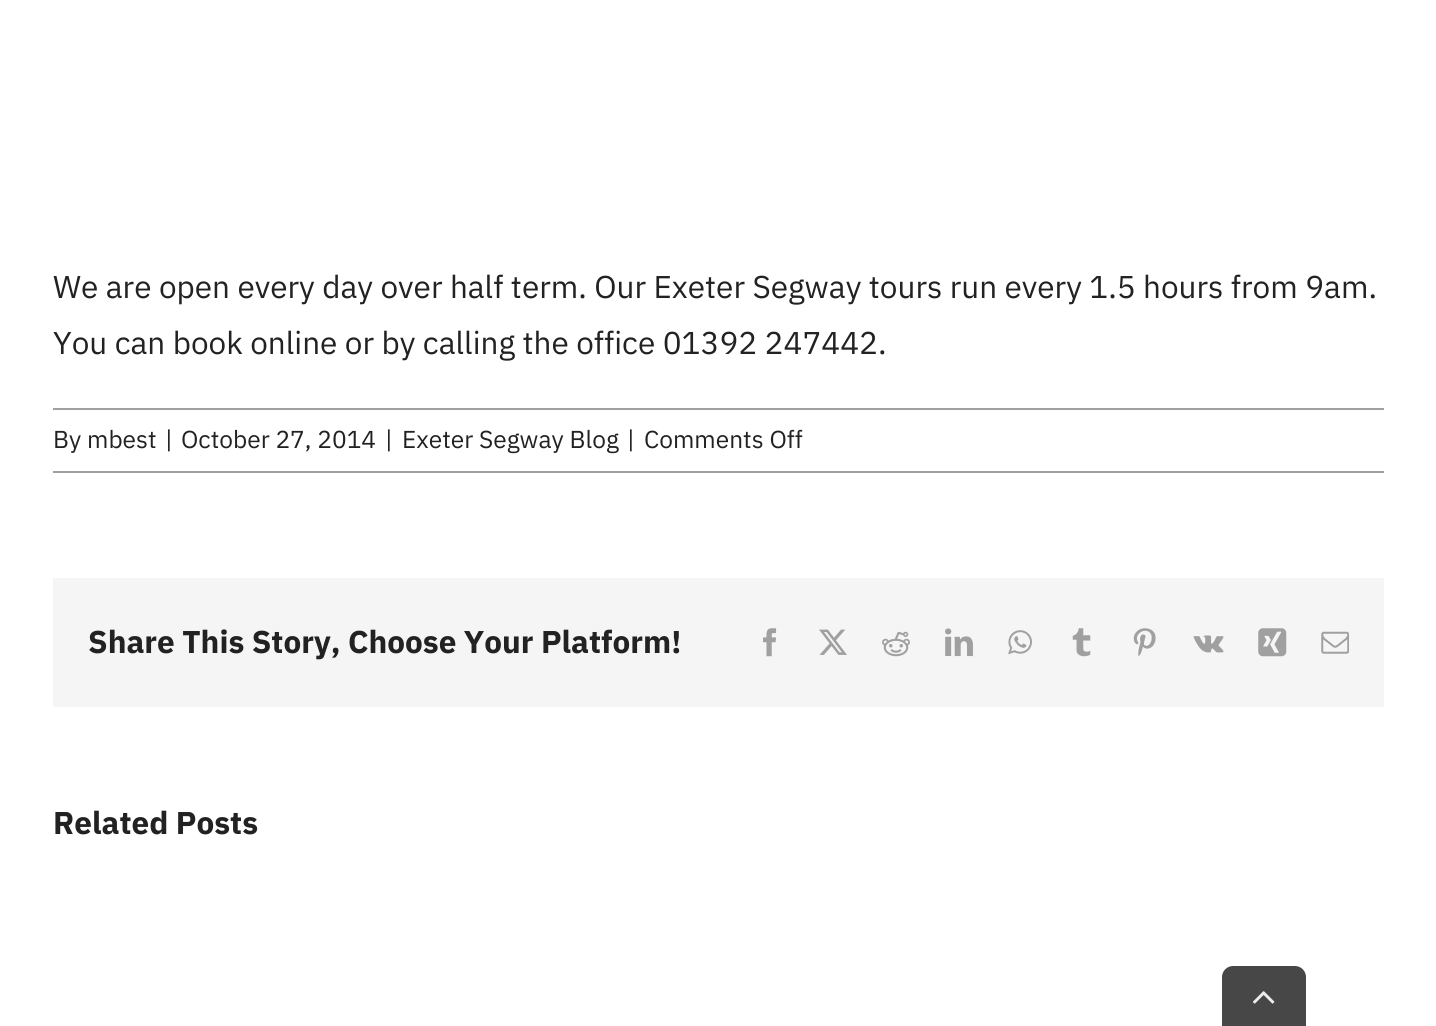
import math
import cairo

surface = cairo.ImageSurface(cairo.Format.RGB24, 1436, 1026)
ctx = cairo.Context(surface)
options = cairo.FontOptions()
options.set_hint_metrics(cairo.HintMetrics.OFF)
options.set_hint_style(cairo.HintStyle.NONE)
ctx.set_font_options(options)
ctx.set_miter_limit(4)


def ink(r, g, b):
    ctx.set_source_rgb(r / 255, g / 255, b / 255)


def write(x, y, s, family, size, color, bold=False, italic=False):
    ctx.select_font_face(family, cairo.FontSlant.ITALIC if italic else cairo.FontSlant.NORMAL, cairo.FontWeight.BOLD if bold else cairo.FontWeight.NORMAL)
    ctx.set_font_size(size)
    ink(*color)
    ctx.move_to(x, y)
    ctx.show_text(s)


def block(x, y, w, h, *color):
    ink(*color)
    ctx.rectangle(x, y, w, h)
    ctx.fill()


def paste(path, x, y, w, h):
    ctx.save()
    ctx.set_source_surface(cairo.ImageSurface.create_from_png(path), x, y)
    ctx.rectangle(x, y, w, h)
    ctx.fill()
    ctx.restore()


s1 = dict(family="IBM Plex Sans", size=31.5, color=(34, 34, 34))
s2 = dict(family="IBM Plex Sans", size=24.5, color=(34, 34, 34))
s3 = dict(family="IBM Plex Sans", size=31.5, color=(34, 34, 34), bold=True)

ink(255, 255, 255)
ctx.paint()
write(53, 298, "We are open every day over half term. Our Exeter Segway tours run every 1.5 hours from 9am.", **s1)
write(53, 354, "You can book online or by calling the office 01392 247442.", **s1)
block(53, 408, 1331, 2, 160, 160, 160)
block(53, 471, 1331, 2, 160, 160, 160)
write(53, 448, "By mbest", **s2)
write(165, 448, "|", **s2)
write(181, 448, "October 27, 2014", **s2)
write(385, 448, "|", **s2)
write(402, 448, "Exeter Segway Blog", **s2)
write(627, 448, "|", **s2)
write(644, 448, "Comments Off", **s2)
block(53, 578, 1331, 129, 245, 245, 245)
write(88, 653, "Share This Story, Choose Your Platform!", **s3)
paste("pic1.png", 763, 628, 14, 29)
paste("pic2.png", 819, 629, 28, 26)
paste("pic3.png", 882, 631, 28, 26)
paste("pic4.png", 945, 628, 28, 29)
paste("pic5.png", 1008, 630, 24, 25)
paste("pic6.png", 1072, 628, 19, 29)
paste("pic7.png", 1133, 628, 23, 28)
paste("pic8.png", 1193, 635, 31, 18)
paste("pic9.png", 1258, 628, 29, 29)
paste("pic10.png", 1321, 631, 28, 23)
write(53, 834, "Related Posts", **s3)
ink(71, 71, 71)
ctx.new_path()
ctx.move_to(1233, 966)
ctx.line_to(1295, 966)
ctx.curve_to(1301, 966, 1306, 971, 1306, 977)
ctx.line_to(1306, 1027)
ctx.line_to(1222, 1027)
ctx.line_to(1222, 977)
ctx.curve_to(1222, 971, 1227, 966, 1233, 966)
ctx.close_path()
ctx.fill()
paste("pic11.png", 1253, 991, 22, 13)
surface.write_to_png("screenshot.png")
